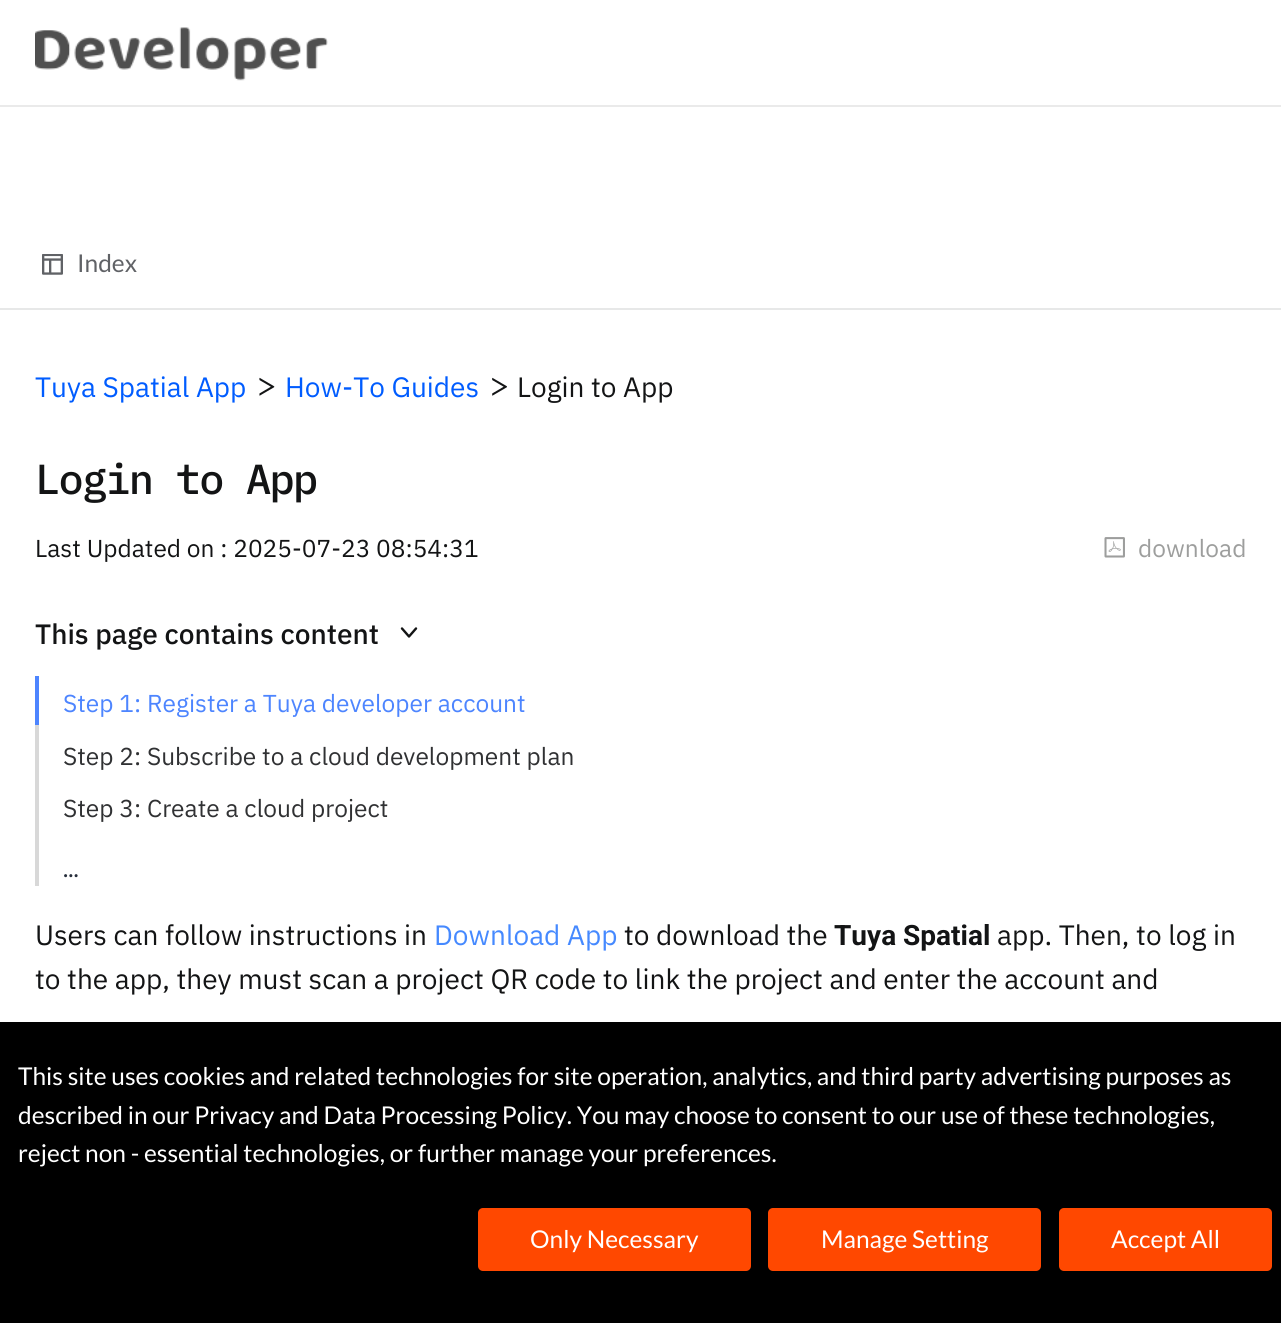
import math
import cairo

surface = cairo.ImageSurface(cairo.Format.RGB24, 1281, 1323)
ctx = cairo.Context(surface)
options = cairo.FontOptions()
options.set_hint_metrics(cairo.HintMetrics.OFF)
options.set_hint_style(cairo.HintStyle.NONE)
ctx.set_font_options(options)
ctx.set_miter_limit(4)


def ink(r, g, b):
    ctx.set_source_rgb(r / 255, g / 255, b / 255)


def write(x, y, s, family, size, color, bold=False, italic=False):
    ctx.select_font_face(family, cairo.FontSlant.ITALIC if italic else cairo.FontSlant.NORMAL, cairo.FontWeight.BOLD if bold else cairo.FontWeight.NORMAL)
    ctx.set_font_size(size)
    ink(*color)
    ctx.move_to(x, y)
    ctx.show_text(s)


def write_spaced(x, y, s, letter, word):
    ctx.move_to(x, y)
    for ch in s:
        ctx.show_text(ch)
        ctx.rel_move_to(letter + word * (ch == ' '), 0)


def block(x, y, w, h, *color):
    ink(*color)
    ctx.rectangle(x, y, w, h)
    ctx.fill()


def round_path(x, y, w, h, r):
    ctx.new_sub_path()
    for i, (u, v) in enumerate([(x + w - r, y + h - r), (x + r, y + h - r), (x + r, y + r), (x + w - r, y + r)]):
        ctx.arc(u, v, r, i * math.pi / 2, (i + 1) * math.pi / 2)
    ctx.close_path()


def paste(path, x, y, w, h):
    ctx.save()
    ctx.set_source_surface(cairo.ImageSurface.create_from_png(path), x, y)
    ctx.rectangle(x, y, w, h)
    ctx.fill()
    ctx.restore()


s1 = dict(family="Lato", size=24.5, color=(96, 98, 102))
s2 = dict(family="IBM Plex Sans", size=28, color=(0, 92, 255))
s3 = dict(family="IBM Plex Sans", size=28, color=(19, 20, 21))
s4 = dict(family="IBM Plex Sans", size=24.5, color=(19, 20, 21))
s5 = dict(family="IBM Plex Sans", size=24.5, color=(157, 158, 157))
s6 = dict(family="IBM Plex Sans Medium", size=28, color=(19, 20, 21))
s7 = dict(family="IBM Plex Sans", size=24.5, color=(77, 133, 255))
s8 = dict(family="IBM Plex Sans", size=24.5, color=(48, 49, 51))
s9 = dict(family="Lato", size=24.5, color=(39, 46, 59))
s10 = dict(family="IBM Plex Sans", size=28, color=(69, 137, 255))
s11 = dict(family="Roboto", size=28, color=(19, 20, 21), bold=True)
s12 = dict(family="Lato", size=24.5, color=(255, 255, 255))

ink(255, 255, 255)
ctx.paint()
block(0, 105, 1281, 2, 234, 234, 234)
paste("pic1.png", 35, 27, 293, 54)
block(0, 308, 1281, 2, 231, 232, 232)
paste("pic2.png", 42, 254, 21, 21)
write(77, 272, "Index", **s1)
write(35, 397, "Tuya Spatial App", **s2)
paste("pic3.png", 259, 377, 16, 19)
write(285, 397, "How-To Guides", **s2)
paste("pic4.png", 492, 377, 15, 19)
write(517, 397, "Login to App", **s3)
ctx.select_font_face("IBM Plex Mono Medium")
ctx.set_font_size(42)
write_spaced(35, 494, "Login to App", -1.75, 0)
write(35, 557, "Last Updated on : 2025-07-23 08:54:31", **s4)
paste("pic5.png", 1104, 537, 21, 21)
write(1138, 557, "download", **s5)
write(35, 644, "This page contains content", **s6)
ctx.new_path()
ctx.move_to(416, 628.5)
ctx.line_to(409, 636.5)
ctx.line_to(402, 628.5)
ctx.set_line_width(2.4)
ctx.set_line_cap(cairo.LineCap.ROUND)
ctx.set_line_join(cairo.LineJoin.ROUND)
ctx.stroke()
block(35, 676, 4, 49, 77, 133, 255)
write(63, 712, "Step 1: Register a Tuya developer account", **s7)
block(35, 725, 4, 161, 216, 216, 216)
write(63, 765, "Step 2: Subscribe to a cloud development plan", **s8)
write(63, 817, "Step 3: Create a cloud project", **s8)
write(63, 877, "...", **s9)
write(35, 945, "Users can follow instructions in", **s3)
write(434, 945, "Download App", **s10)
write(624, 945, "to download the", **s3)
write(834, 945, "Tuya Spatial", **s11)
write(997, 945, "app. Then, to log in", **s3)
write(35, 989, "to the app, they must scan a project QR code to link the project and enter the account and", **s3)
block(0, 1022, 1281, 301, 0, 0, 0)
write(18, 1085, "This site uses cookies and related technologies for site operation, analytics, and third party advertising purposes as", **s12)
write(18, 1124, "described in our Privacy and Data Processing Policy. You may choose to consent to our use of these technologies,", **s12)
write(18, 1162, "reject non - essential technologies, or further manage your preferences.", **s12)
ink(255, 72, 0)
round_path(478, 1208, 273, 63, 5)
ctx.fill()
write(530, 1248, "Only Necessary", **s12)
ink(255, 72, 0)
round_path(768, 1208, 273, 63, 5)
ctx.fill()
write(821, 1248, "Manage Setting", **s12)
ink(255, 72, 0)
round_path(1059, 1208, 213, 63, 5)
ctx.fill()
write(1111, 1248, "Accept All", **s12)
surface.write_to_png("screenshot.png")
